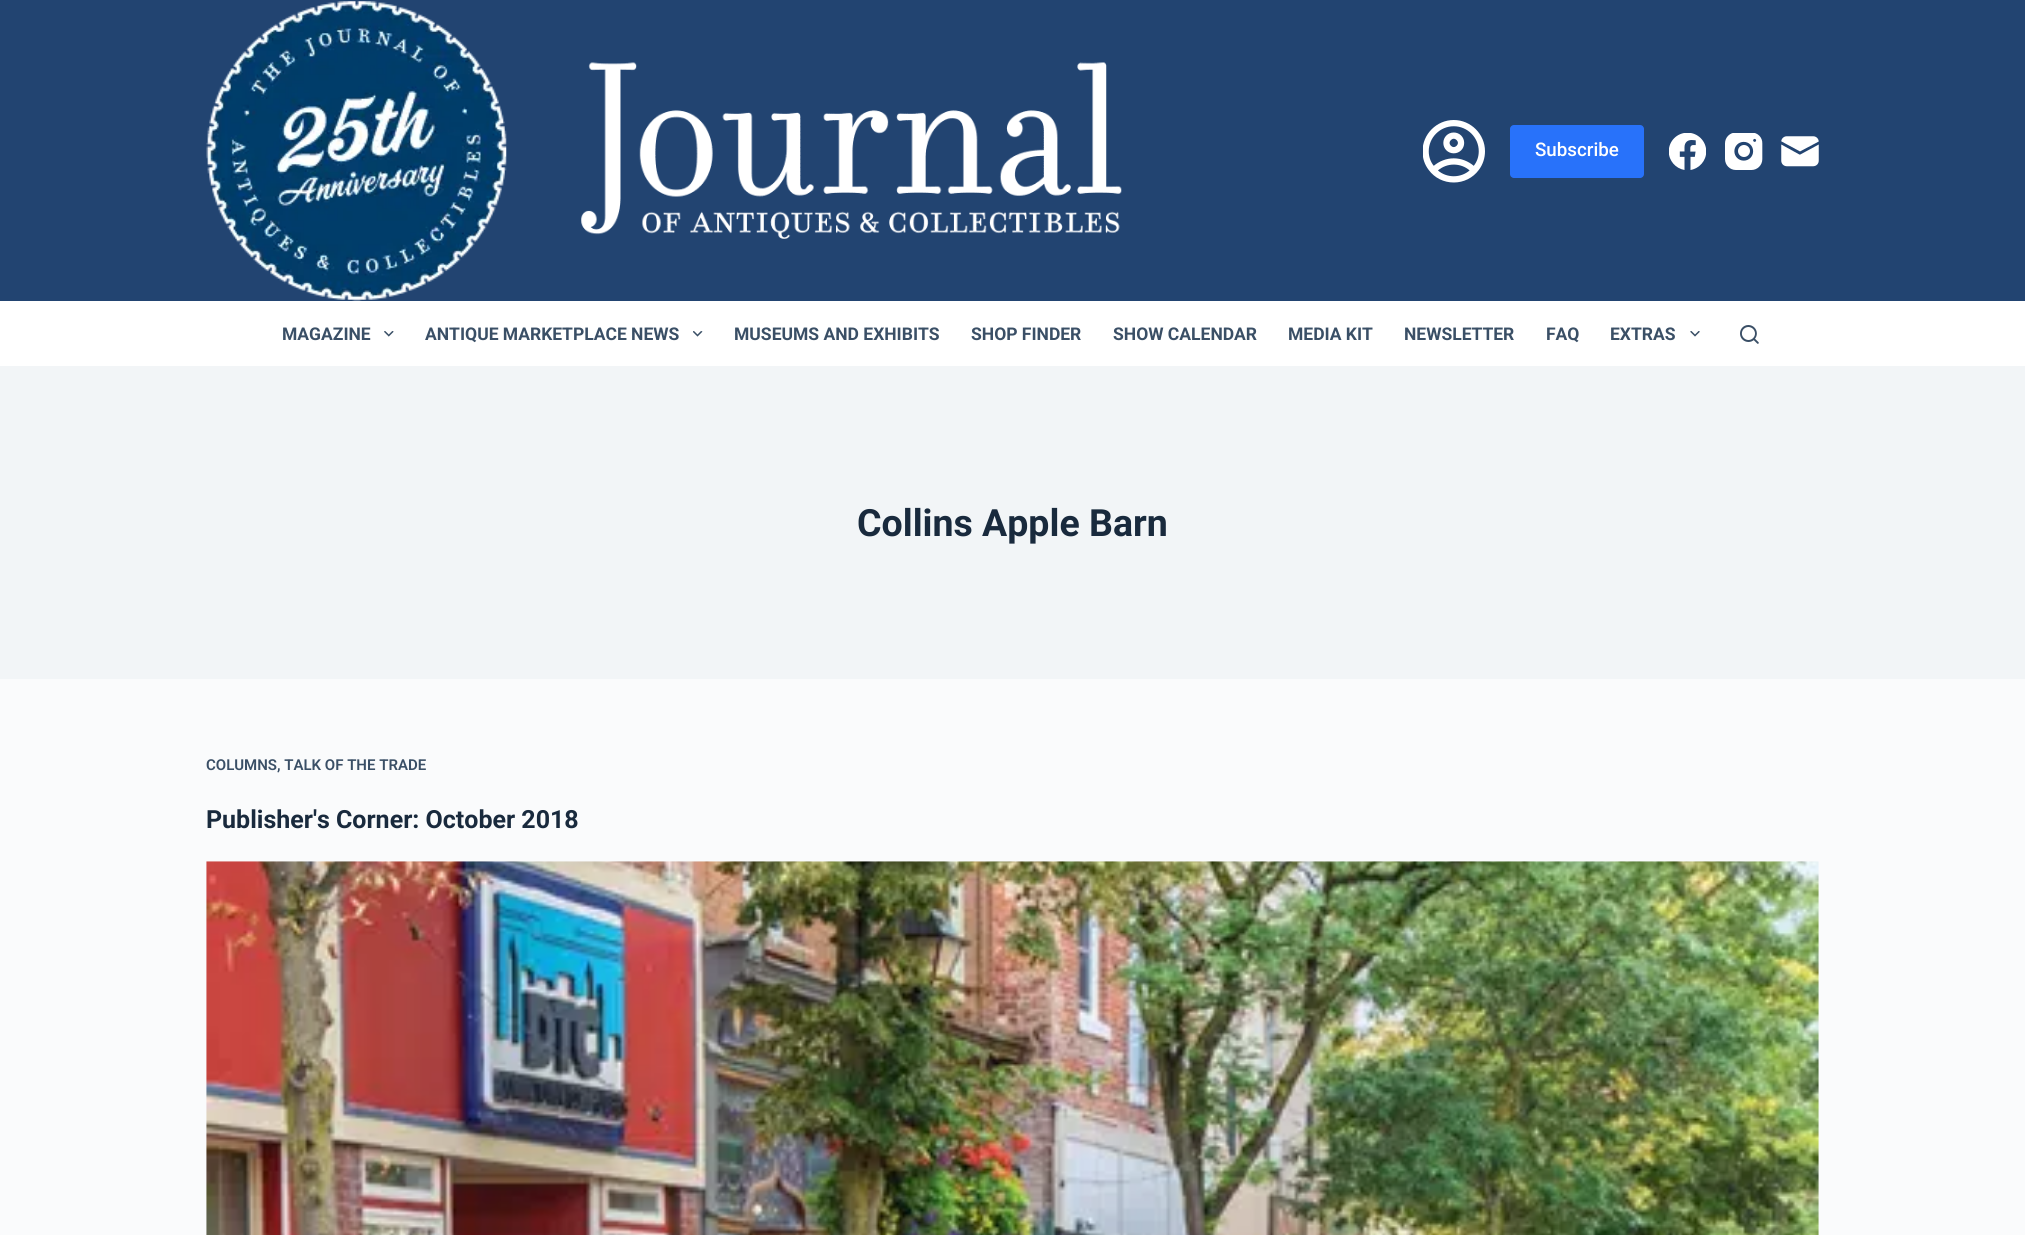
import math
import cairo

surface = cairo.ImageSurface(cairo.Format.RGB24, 2025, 1235)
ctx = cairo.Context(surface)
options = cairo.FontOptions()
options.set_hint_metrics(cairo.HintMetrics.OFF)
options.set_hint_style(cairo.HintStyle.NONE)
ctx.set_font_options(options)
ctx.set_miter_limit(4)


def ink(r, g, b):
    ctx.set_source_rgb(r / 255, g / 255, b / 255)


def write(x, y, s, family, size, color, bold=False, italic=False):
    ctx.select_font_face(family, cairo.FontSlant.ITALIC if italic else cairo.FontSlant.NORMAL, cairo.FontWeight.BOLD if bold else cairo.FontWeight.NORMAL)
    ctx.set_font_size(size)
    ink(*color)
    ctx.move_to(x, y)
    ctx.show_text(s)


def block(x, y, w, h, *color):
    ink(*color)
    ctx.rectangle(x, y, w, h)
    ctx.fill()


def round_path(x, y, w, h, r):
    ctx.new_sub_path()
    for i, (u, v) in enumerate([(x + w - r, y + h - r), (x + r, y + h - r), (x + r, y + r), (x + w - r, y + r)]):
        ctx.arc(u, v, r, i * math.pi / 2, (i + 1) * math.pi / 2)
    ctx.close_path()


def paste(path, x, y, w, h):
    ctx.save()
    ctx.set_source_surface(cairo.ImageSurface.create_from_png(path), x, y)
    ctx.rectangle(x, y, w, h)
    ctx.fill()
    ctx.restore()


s1 = dict(family="Roboto Medium", size=18.75, color=(255, 255, 255))
s2 = dict(family="Roboto", size=17.5, color=(58, 79, 102), bold=True)
s3 = dict(family="Roboto", size=37.5, color=(25, 42, 61), bold=True)
s4 = dict(family="Roboto SemiBold", size=15, color=(58, 79, 102))
s5 = dict(family="Roboto", size=25, color=(25, 42, 61), bold=True)

ink(250, 251, 252)
ctx.paint()
block(0, 0, 2025, 301, 34, 68, 113)
paste("pic1.png", 206, 1, 301, 300)
paste("pic2.png", 581, 62, 541, 177)
paste("pic3.png", 1423, 120, 62, 63)
ink(40, 114, 250)
round_path(1510, 125, 134, 53, 4)
ctx.fill()
write(1535, 156, "Subscribe", **s1)
paste("pic4.png", 1669, 133, 37, 37)
paste("pic5.png", 1725, 133, 38, 37)
paste("pic6.png", 1781, 136, 38, 31)
block(0, 301, 2025, 65, 255, 255, 255)
write(282, 340, "MAGAZINE", **s2)
paste("pic7.png", 384, 331, 10, 6)
write(425, 340, "ANTIQUE MARKETPLACE NEWS", **s2)
paste("pic8.png", 693, 331, 10, 6)
write(734, 340, "MUSEUMS AND EXHIBITS", **s2)
write(971, 340, "SHOP FINDER", **s2)
write(1113, 340, "SHOW CALENDAR", **s2)
write(1288, 340, "MEDIA KIT", **s2)
write(1404, 340, "NEWSLETTER", **s2)
write(1546, 340, "FAQ", **s2)
write(1610, 340, "EXTRAS", **s2)
paste("pic9.png", 1690, 331, 10, 6)
paste("pic10.png", 1740, 325, 19, 19)
block(0, 366, 2025, 313, 242, 245, 247)
write(857, 536, "Collins Apple Barn", **s3)
write(206, 770, "COLUMNS, TALK OF THE TRADE", **s4)
write(206, 828, "Publisher's Corner: October 2018", **s5)
paste("pic11.png", 206, 861, 1613, 374)
surface.write_to_png("screenshot.png")
